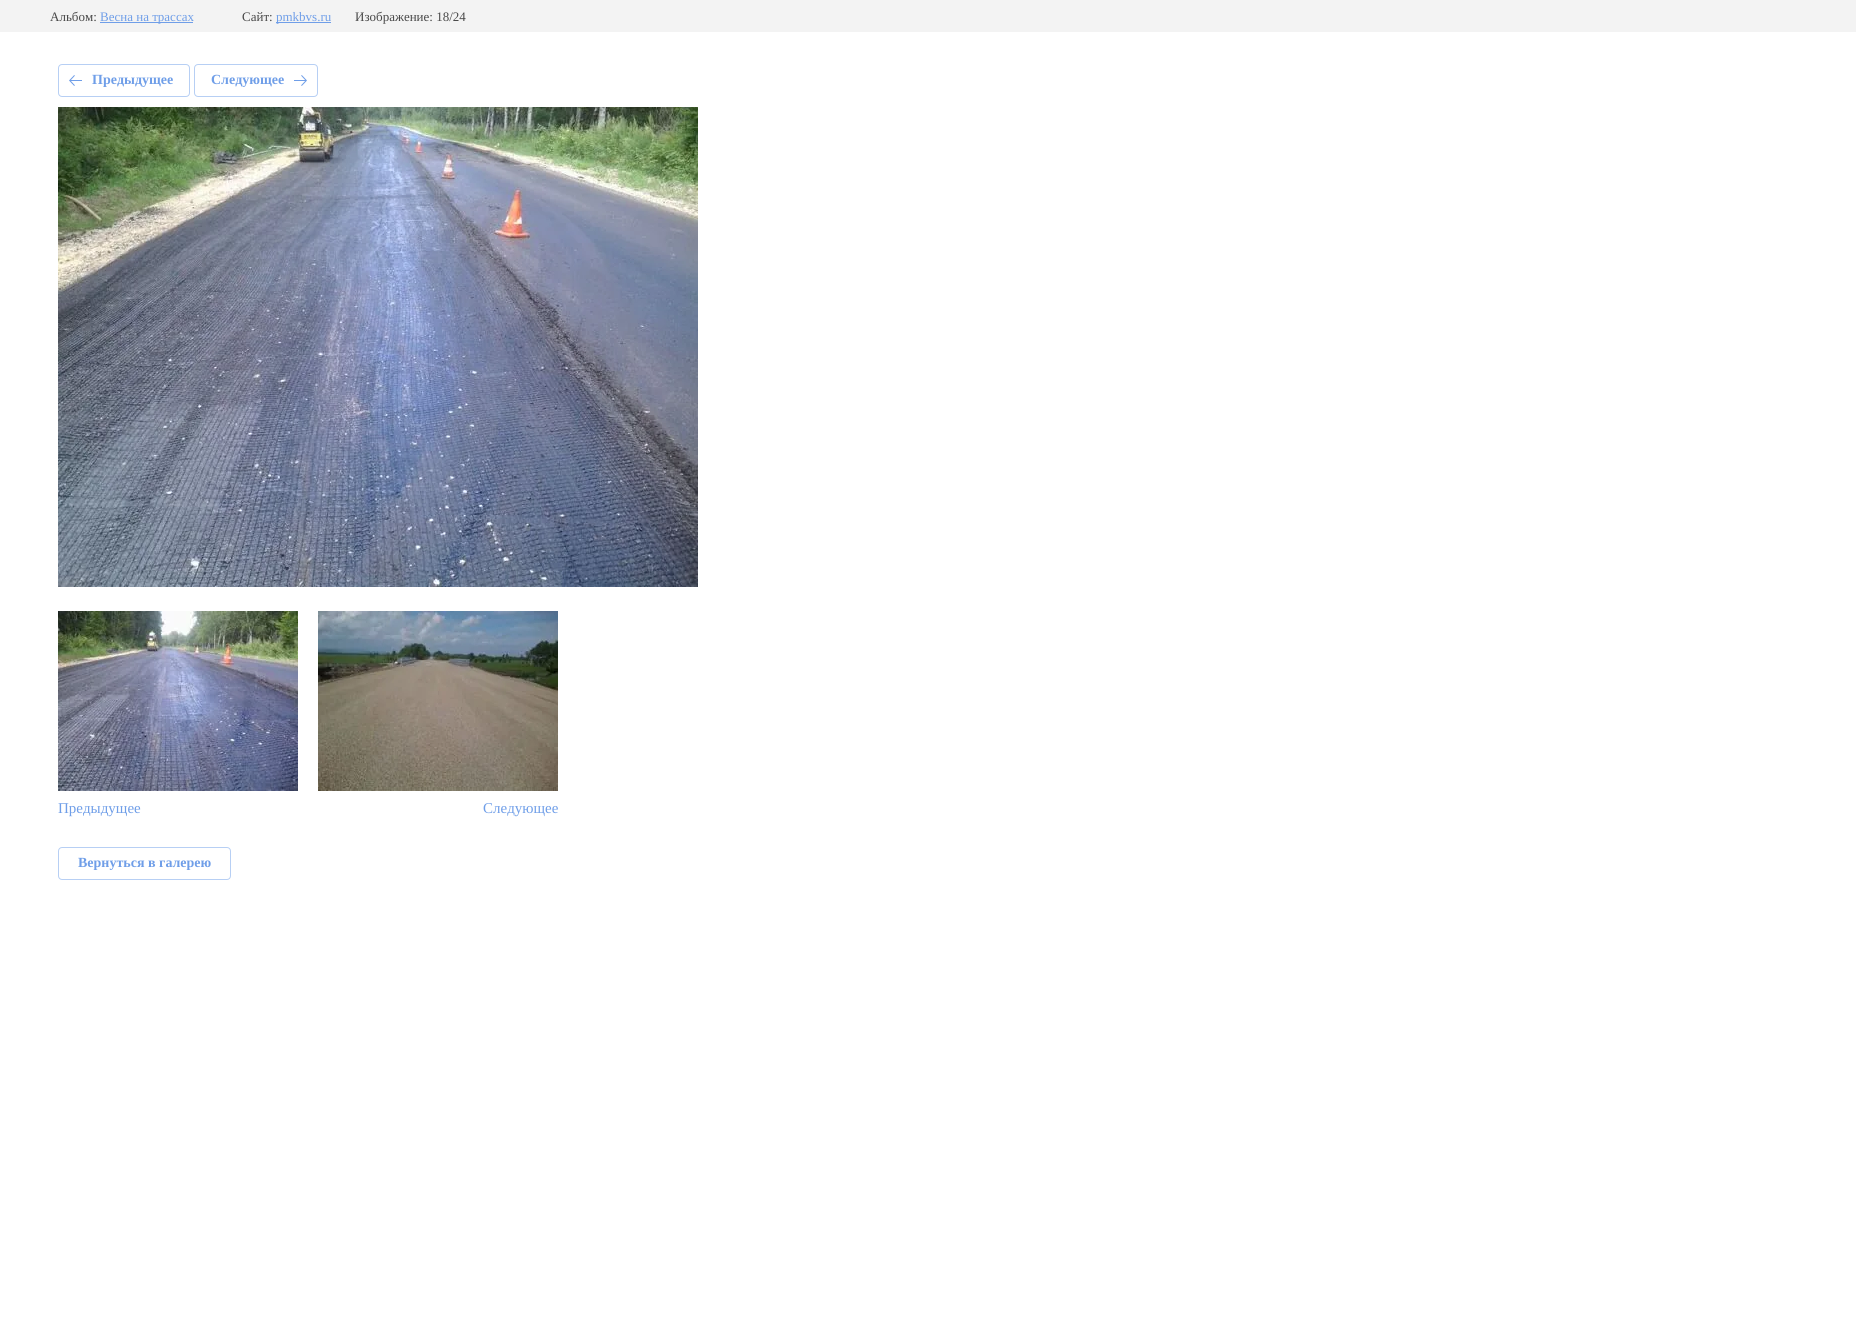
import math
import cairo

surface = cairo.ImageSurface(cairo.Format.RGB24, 1856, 1338)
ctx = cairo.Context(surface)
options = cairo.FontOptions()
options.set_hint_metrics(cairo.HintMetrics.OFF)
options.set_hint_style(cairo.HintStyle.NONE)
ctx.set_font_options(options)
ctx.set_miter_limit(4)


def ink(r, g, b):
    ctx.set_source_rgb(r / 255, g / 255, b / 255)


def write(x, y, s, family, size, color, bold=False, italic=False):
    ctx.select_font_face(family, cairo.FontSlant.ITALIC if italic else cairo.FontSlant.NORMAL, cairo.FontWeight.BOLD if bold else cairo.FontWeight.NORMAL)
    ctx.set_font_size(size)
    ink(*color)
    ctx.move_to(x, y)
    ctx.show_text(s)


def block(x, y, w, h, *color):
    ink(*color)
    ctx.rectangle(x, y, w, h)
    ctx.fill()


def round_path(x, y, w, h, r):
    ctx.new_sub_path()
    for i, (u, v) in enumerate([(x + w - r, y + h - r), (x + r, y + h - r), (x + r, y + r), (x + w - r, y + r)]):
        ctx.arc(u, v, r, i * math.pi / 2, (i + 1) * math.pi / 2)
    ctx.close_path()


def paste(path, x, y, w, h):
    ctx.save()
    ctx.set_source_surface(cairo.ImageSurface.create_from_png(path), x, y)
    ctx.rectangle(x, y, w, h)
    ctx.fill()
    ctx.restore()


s1 = dict(family="Liberation Serif", size=13, color=(72, 72, 72))
s2 = dict(family="Liberation Serif", size=13, color=(111, 158, 232))
s3 = dict(family="Liberation Serif", size=14, color=(111, 158, 232), bold=True)
s4 = dict(family="Liberation Serif", size=15, color=(111, 158, 232))

ink(255, 255, 255)
ctx.paint()
block(0, 0, 1856, 32, 243, 243, 243)
write(50, 21, "Альбом:", **s1)
block(100, 22, 93, 1, 111, 158, 232)
write(100, 21, "Весна на трассах", **s2)
write(242, 21, "Сайт:", **s1)
block(276, 22, 55, 1, 111, 158, 232)
write(276, 21, "pmkbvs.ru", **s2)
write(355, 21, "Изображение: 18/24", **s1)
round_path(58.5, 64.5, 131, 32, 3.5)
ink(183, 207, 244)
ctx.set_line_width(1)
ctx.stroke()
paste("pic1.png", 69, 75, 13, 11)
write(92, 84, "Предыдущее", **s3)
round_path(194.5, 64.5, 123, 32, 3.5)
ink(183, 207, 244)
ctx.stroke()
write(211, 84, "Следующее", **s3)
paste("pic2.png", 294, 75, 13, 11)
paste("pic3.png", 58, 107, 640, 480)
paste("pic4.png", 58, 611, 240, 180)
write(58, 813, "Предыдущее", **s4)
paste("pic5.png", 318, 611, 240, 180)
write(483, 813, "Следующее", **s4)
round_path(58.5, 847.5, 172, 32, 3.5)
ink(183, 207, 244)
ctx.stroke()
write(78, 867, "Вернуться в галерею", **s3)
surface.write_to_png("screenshot.png")
